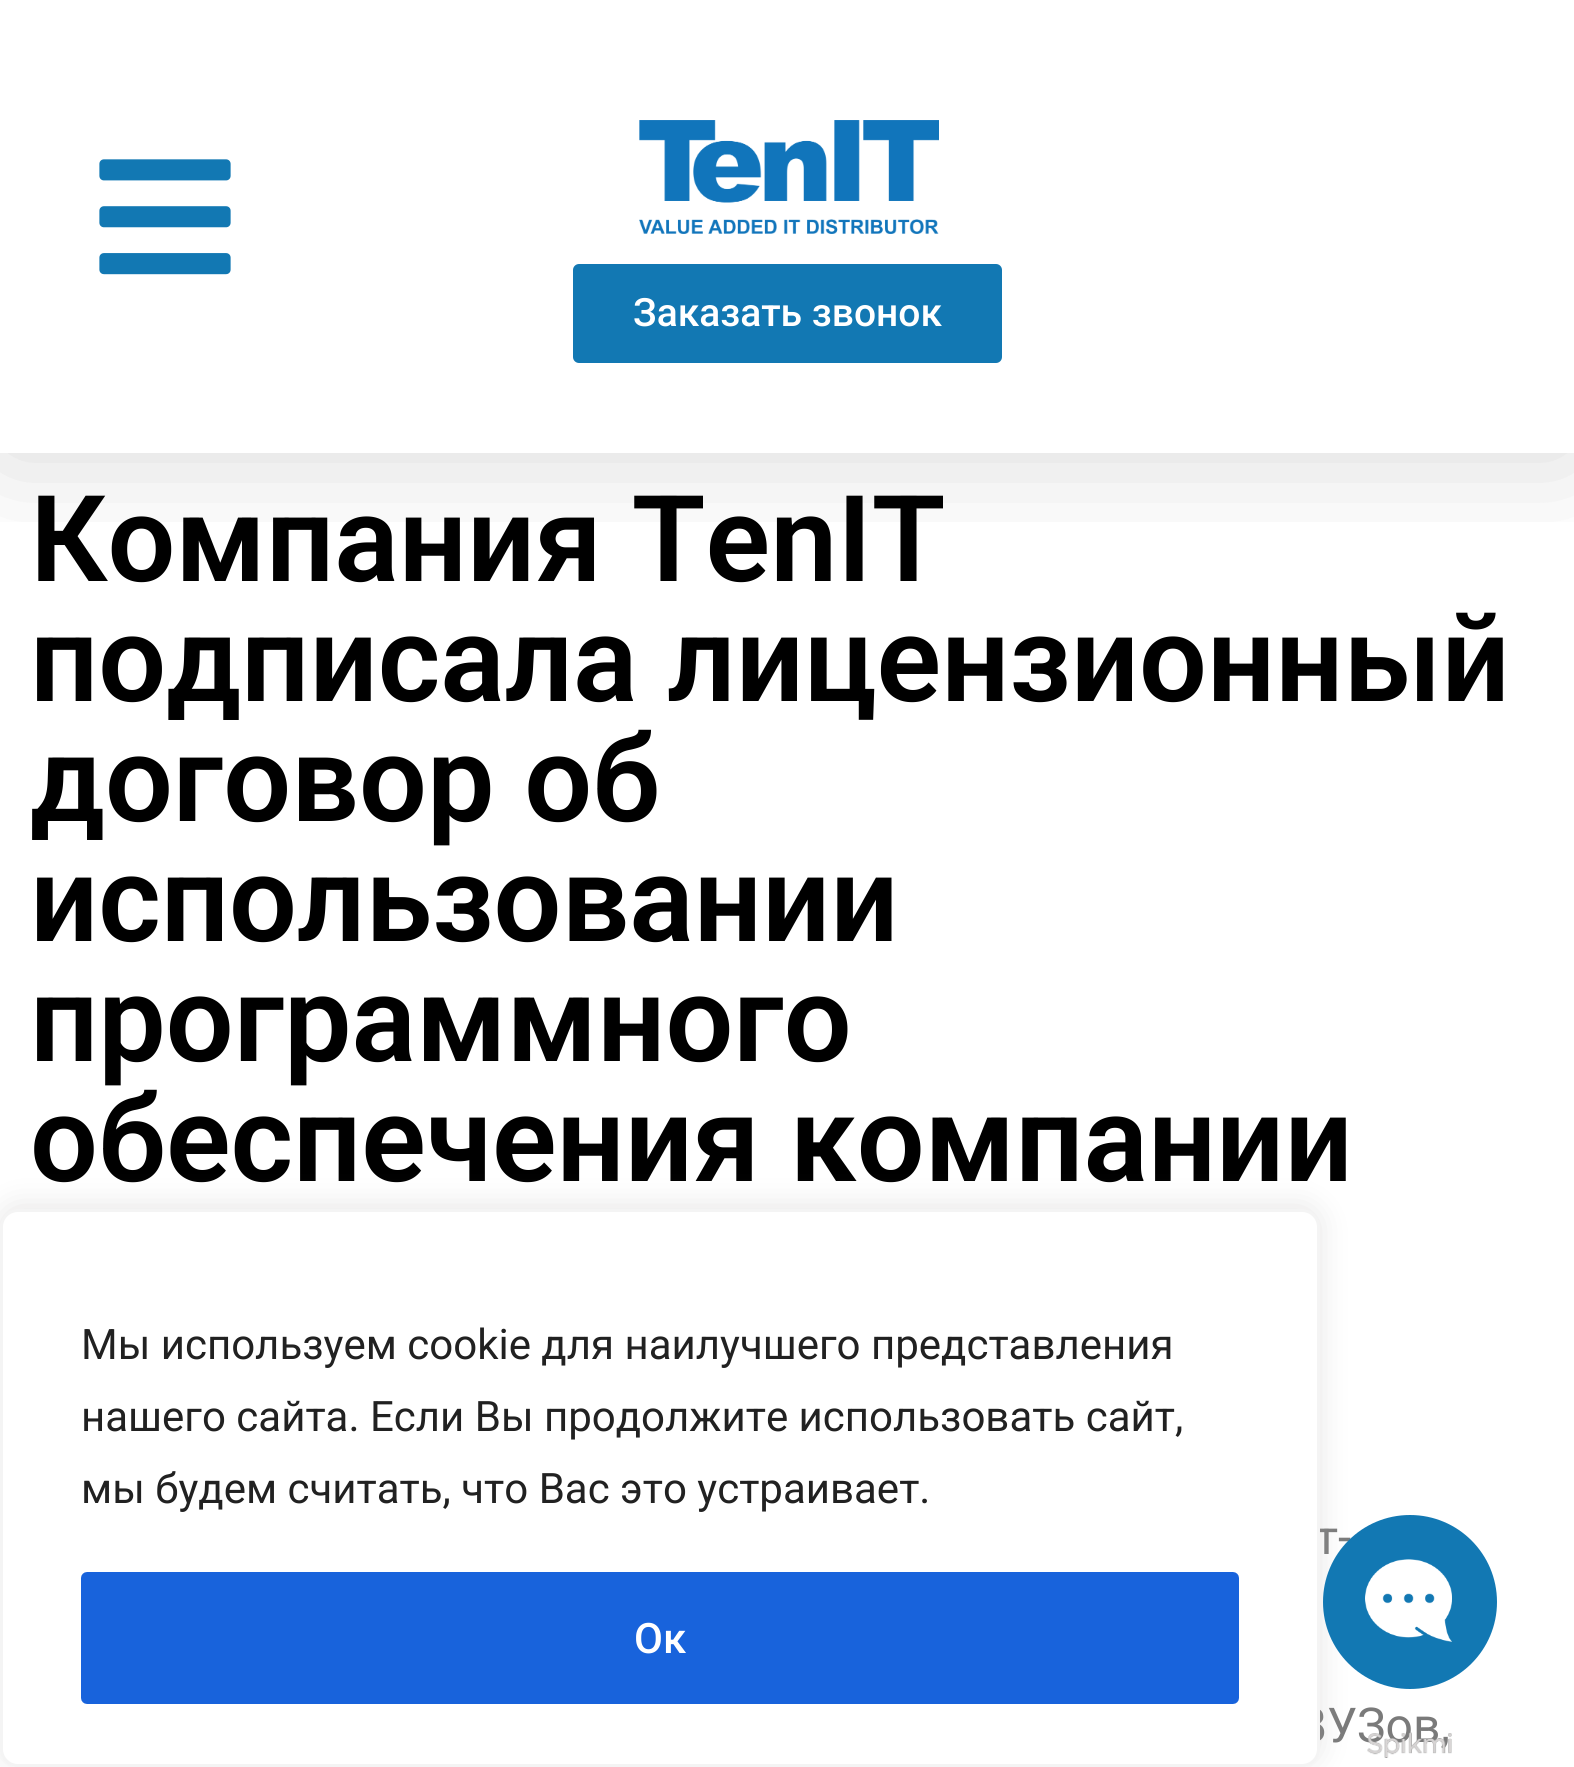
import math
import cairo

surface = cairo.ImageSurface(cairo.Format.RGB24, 1574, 1767)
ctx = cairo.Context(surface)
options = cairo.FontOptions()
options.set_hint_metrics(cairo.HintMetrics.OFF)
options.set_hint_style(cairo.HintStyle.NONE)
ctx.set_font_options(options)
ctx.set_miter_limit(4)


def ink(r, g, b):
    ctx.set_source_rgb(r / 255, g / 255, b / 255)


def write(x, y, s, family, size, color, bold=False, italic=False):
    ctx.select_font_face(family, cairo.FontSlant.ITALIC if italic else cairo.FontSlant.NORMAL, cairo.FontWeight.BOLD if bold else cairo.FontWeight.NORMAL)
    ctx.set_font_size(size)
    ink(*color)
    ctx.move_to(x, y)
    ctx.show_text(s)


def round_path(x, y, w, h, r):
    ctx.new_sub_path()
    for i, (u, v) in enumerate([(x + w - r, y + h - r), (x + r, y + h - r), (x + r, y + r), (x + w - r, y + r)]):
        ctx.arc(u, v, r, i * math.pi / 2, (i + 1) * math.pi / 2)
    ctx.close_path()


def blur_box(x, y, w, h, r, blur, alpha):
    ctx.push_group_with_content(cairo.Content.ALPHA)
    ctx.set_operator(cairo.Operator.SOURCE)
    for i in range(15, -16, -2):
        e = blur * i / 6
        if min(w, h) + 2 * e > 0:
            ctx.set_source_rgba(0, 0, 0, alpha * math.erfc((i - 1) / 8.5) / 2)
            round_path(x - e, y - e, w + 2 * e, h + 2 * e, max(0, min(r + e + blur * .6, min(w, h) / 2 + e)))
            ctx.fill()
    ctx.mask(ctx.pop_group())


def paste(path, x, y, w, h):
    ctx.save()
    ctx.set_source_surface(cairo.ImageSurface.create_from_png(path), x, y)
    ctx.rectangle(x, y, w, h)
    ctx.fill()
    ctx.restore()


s1 = dict(family="Roboto Medium", size=39, color=(255, 255, 255))
s2 = dict(family="Roboto SemiBold", size=120, color=(0, 0, 0))
s3 = dict(family="Roboto", size=48, color=(122, 122, 122))
s4 = dict(family="Roboto", size=42, color=(33, 33, 33))
s5 = dict(family="Roboto Medium", size=42, color=(255, 255, 255))

ink(255, 255, 255)
ctx.paint()
ctx.save()
ctx.rectangle(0, 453, 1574, 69)
ctx.clip()
ink(0, 0, 0)
blur_box(0, 0, 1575, 453, 0, 60, 0.16)
ctx.restore()
paste("pic1.png", 99, 159, 132, 116)
paste("pic2.png", 639, 120, 300, 114)
ink(18, 120, 179)
round_path(573, 264, 429, 99, 6)
ctx.fill()
write(633, 326, "Заказать звонок", **s1)
write(30, 581, "Компания TenIT", **s2)
write(30, 701, "подписала лицензионный", **s2)
write(30, 821, "договор об", **s2)
write(30, 941, "использовании", **s2)
write(30, 1061, "программного", **s2)
write(30, 1181, "обеспечения компании", **s2)
write(1315, 1554, "т-", **s3)
write(1297, 1742, "ВУЗов,", **s3)
ink(172, 171, 171)
blur_box(0, 1206, 1320, 558, 18, 15, 0.3)
ink(255, 255, 255)
round_path(1.5, 1210.5, 1317, 555, 16.5)
ctx.fill_preserve()
ink(244, 244, 244)
ctx.set_line_width(3)
ctx.stroke()
write(81, 1359, "Мы используем cookie для наилучшего представления", **s4)
write(81, 1431, "нашего сайта. Если Вы продолжите использовать сайт,", **s4)
write(81, 1503, "мы будем считать, что Вас это устраивает.", **s4)
ink(24, 99, 220)
round_path(84, 1575, 1152, 126, 3)
ctx.fill_preserve()
ctx.set_line_width(6)
ctx.stroke()
write(634, 1653, "Ок", **s5)
ink(18, 120, 179)
ctx.new_path()
ctx.arc(1410, 1602, 87, 0, 2 * math.pi)
ctx.fill()
paste("pic3.png", 1365, 1559, 87, 83)
paste("pic4.png", 1367, 1732, 85, 26)
surface.write_to_png("screenshot.png")
